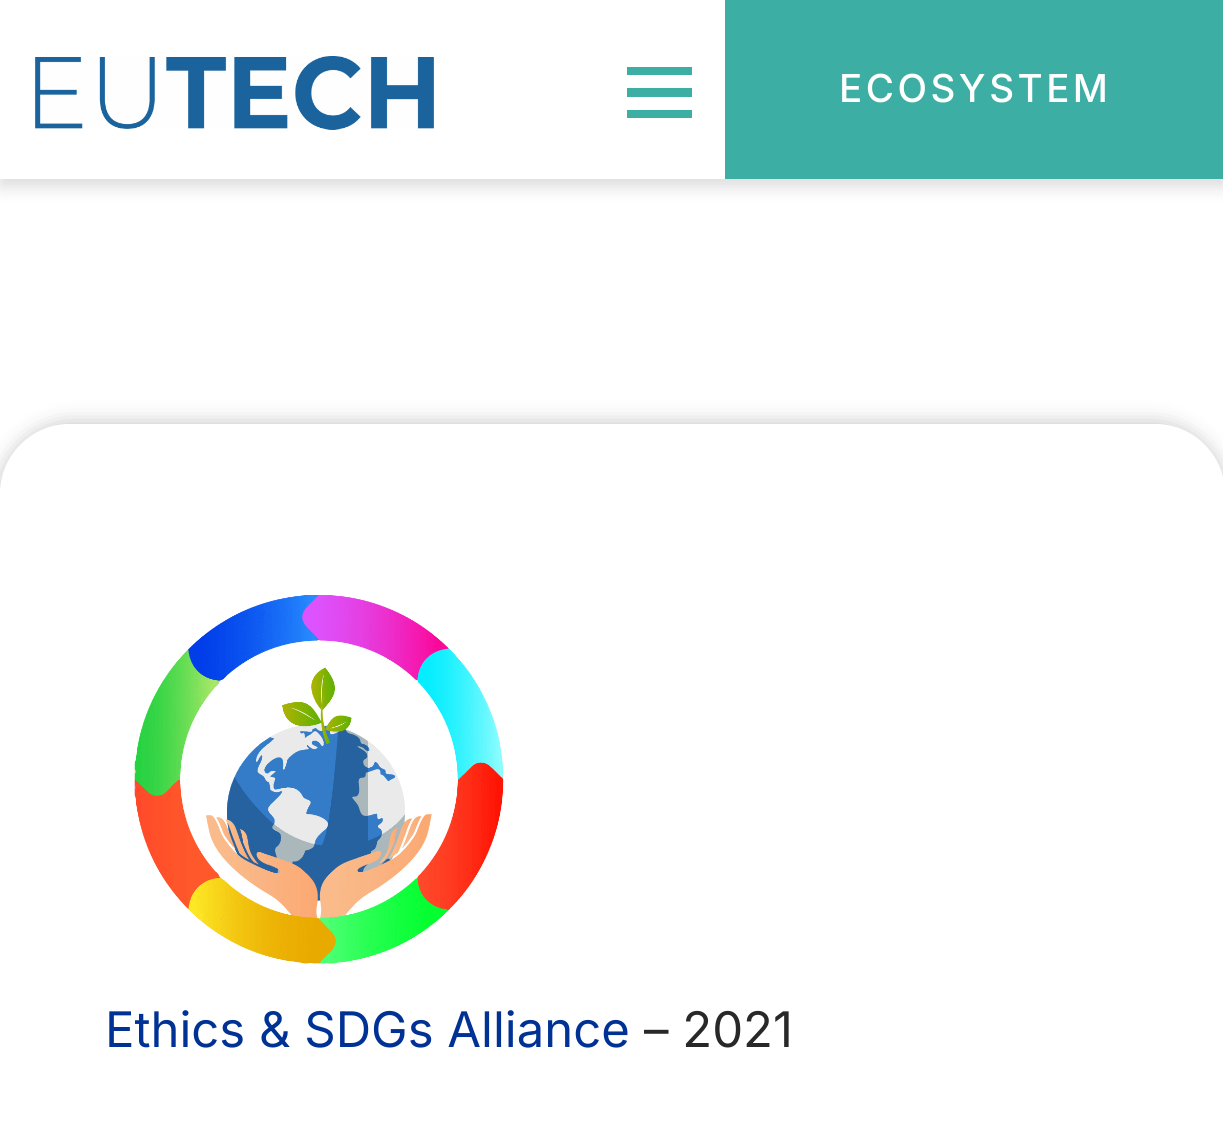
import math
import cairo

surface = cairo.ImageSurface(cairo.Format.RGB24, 1223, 1125)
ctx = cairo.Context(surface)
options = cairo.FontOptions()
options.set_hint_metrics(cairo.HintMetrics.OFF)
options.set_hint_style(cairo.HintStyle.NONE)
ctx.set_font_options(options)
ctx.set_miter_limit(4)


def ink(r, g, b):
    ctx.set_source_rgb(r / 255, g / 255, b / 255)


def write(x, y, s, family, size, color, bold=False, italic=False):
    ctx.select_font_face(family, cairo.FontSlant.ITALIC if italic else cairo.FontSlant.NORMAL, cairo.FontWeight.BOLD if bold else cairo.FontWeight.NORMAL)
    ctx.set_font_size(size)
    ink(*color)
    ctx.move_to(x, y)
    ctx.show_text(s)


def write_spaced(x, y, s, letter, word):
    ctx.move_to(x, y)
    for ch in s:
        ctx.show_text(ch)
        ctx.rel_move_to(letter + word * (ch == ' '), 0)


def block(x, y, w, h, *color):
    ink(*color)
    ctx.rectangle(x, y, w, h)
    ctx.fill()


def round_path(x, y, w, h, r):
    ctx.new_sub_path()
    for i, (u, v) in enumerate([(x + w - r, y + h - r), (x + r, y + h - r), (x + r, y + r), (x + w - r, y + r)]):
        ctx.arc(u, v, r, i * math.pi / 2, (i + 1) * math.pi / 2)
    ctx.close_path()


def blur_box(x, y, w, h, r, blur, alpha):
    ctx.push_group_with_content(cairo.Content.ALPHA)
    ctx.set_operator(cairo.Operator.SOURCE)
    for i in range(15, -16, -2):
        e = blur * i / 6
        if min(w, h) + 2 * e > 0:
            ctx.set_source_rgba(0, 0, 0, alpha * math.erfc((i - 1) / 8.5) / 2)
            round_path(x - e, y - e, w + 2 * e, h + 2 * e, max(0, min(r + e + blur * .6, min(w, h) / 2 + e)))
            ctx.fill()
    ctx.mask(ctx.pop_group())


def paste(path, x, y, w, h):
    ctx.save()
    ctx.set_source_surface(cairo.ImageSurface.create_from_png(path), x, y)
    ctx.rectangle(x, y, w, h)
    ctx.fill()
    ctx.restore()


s1 = dict(family="Inter", size=49, color=(0, 50, 149))
s2 = dict(family="Inter", size=49, color=(40, 40, 40))

ink(255, 255, 255)
ctx.paint()
ink(0, 0, 0)
blur_box(0, 7, 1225, 179, 0, 9, 0.15)
block(0, 0, 725, 179, 255, 255, 255)
paste("pic1.png", 35, 56, 399, 74)
ink(60, 174, 163)
ctx.new_path()
ctx.move_to(692, 67)
ctx.line_to(692, 75)
ctx.line_to(627, 75)
ctx.line_to(627, 67)
ctx.close_path()
ctx.move_to(627, 97)
ctx.line_to(692, 97)
ctx.line_to(692, 88)
ctx.line_to(627, 88)
ctx.close_path()
ctx.move_to(627, 118)
ctx.line_to(692, 118)
ctx.line_to(692, 110)
ctx.line_to(627, 110)
ctx.close_path()
ctx.fill()
block(725, 0, 498, 179, 60, 174, 163)
ctx.select_font_face("Inter Medium")
ctx.set_font_size(38.5)
ink(255, 255, 255)
write_spaced(839, 102, "ECOSYSTEM", 3.5, 0)
ctx.save()
ctx.set_fill_rule(cairo.FillRule.EVEN_ODD)
ctx.new_path()
ctx.move_to(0, 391)
ctx.line_to(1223, 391)
ctx.line_to(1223, 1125)
ctx.line_to(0, 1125)
ctx.close_path()
ctx.move_to(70, 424)
ctx.line_to(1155, 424)
ctx.curve_to(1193.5, 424, 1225, 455.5, 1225, 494)
ctx.line_to(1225, 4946)
ctx.curve_to(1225, 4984.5, 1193.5, 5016, 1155, 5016)
ctx.line_to(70, 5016)
ctx.curve_to(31.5, 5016, 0, 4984.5, 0, 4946)
ctx.line_to(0, 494)
ctx.curve_to(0, 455.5, 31.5, 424, 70, 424)
ctx.close_path()
ctx.clip()
ink(0, 0, 0)
blur_box(0, 424, 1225, 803, 70, 10.5, 0.25)
ctx.restore()
paste("pic2.png", 134, 595, 370, 369)
write(105, 1047, "Ethics & SDGs Alliance", **s1)
write(644, 1047, "– 2021", **s2)
surface.write_to_png("screenshot.png")
